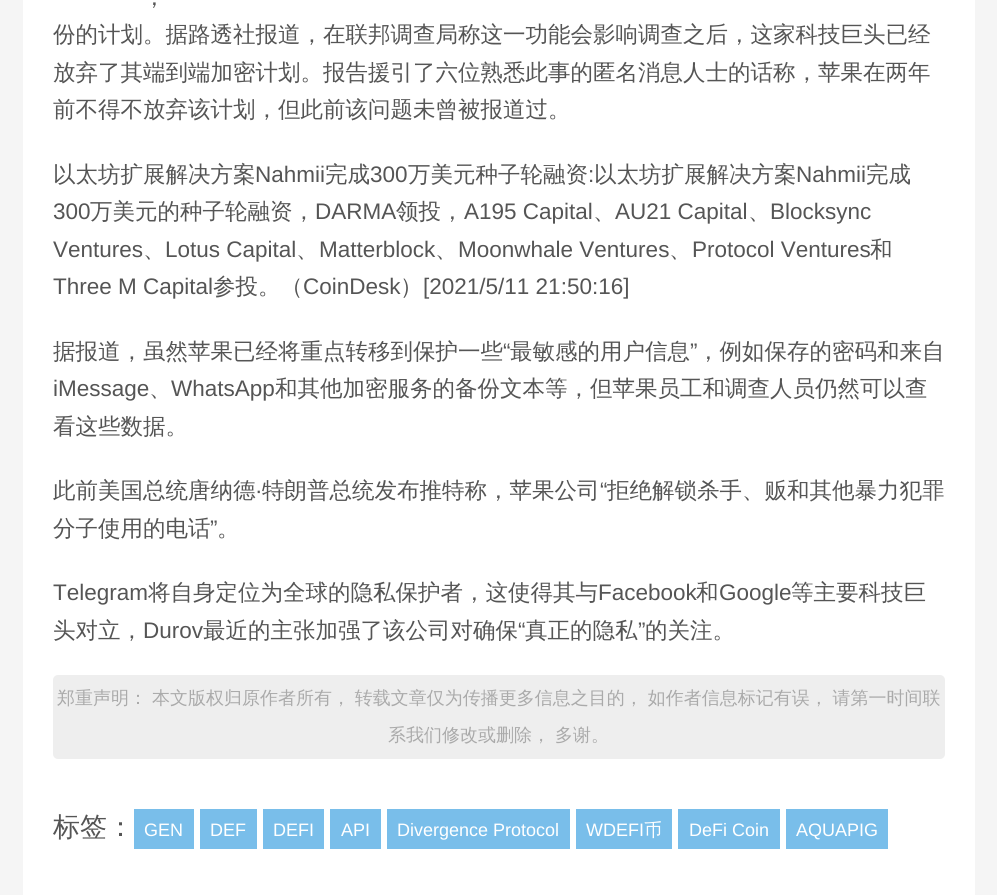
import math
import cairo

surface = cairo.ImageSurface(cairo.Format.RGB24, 997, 895)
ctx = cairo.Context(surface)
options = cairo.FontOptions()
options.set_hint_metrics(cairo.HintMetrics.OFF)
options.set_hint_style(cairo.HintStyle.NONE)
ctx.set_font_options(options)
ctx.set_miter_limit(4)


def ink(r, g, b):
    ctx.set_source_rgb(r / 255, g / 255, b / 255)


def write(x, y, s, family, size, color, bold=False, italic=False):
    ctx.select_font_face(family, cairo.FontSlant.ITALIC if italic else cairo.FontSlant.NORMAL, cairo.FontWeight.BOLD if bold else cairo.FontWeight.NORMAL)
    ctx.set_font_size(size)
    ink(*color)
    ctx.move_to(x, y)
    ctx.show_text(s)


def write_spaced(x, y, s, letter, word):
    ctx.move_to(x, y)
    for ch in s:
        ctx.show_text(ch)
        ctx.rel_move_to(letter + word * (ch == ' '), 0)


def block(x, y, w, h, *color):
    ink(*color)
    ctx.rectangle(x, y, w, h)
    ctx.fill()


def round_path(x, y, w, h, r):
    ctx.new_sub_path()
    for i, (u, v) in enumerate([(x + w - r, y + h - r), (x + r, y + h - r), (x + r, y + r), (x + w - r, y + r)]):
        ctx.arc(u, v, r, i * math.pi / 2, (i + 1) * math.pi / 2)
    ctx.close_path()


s1 = dict(family="WenQuanYi Zen Hei Medium", size=22.5, color=(85, 85, 85))
s2 = dict(family="Liberation Sans", size=22.5, color=(85, 85, 85))
s3 = dict(family="WenQuanYi Zen Hei Medium", size=27, color=(85, 85, 85))
s4 = dict(family="Liberation Sans", size=18, color=(255, 255, 255))
s5 = dict(family="WenQuanYi Zen Hei Medium", size=18, color=(255, 255, 255))

ink(245, 245, 245)
ctx.paint()
block(23, 0, 952, 895, 255, 255, 255)
write(143, 5, "，", **s1)
write(53, 42, "份的计划。据路透社报道，在联邦调查局称这一功能会影响调查之后，这家科技巨头已经", **s1)
write(53, 80, "放弃了其端到端加密计划。报告援引了六位熟悉此事的匿名消息人士的话称，苹果在两年", **s1)
write(53, 117, "前不得不放弃该计划，但此前该问题未曾被报道过。", **s1)
write(53, 182, "以太坊扩展解决方案", **s1)
write(255, 182, "Nahmii", **s2)
write(325, 182, "完成", **s1)
write(370, 182, "300", **s2)
write(408, 182, "万美元种子轮融资", **s1)
write(588, 182, ":", **s2)
write(594, 182, "以太坊扩展解决方案", **s1)
write(796, 182, "Nahmii", **s2)
write(866, 182, "完成", **s1)
write(53, 219, "300", **s2)
write(90, 219, "万美元的种子轮融资，", **s1)
write(315, 219, "DARMA", **s2)
write(396, 219, "领投，", **s1)
write(464, 219, "A195 Capital", **s2)
write(615, 219, "AU21 Capital", **s2)
write(770, 219, "Blocksync", **s2)
write(593, 219, "、", **s1)
write(748, 219, "、", **s1)
write(53, 257, "Ventures", **s2)
write(143, 257, "、", **s1)
write(165, 257, "Lotus Capital", **s2)
write(296, 257, "、", **s1)
write(319, 257, "Matterblock", **s2)
write(435, 257, "、", **s1)
write(458, 257, "Moonwhale Ventures", **s2)
write(669, 257, "、", **s1)
write(692, 257, "Protocol Ventures", **s2)
write(870, 257, "和", **s1)
write(53, 294, "Three M Capital", **s2)
write(213, 294, "参投。（", **s1)
write(303, 294, "CoinDesk", **s2)
write(400, 294, "）", **s1)
write(423, 294, "[2021/5/11 21:50:16]", **s2)
write(53, 359, "据报道，虽然苹果已经将重点转移到保护一些", **s1)
write(503, 359, "“", **s2)
write(510, 359, "最敏感的用户信息", **s1)
write(690, 359, "”", **s2)
write(697, 359, "，例如保存的密码和来自", **s1)
write(53, 396, "iMessage", **s2)
write(149, 396, "、", **s1)
write(171, 396, "WhatsApp", **s2)
write(275, 396, "和其他加密服务的备份文本等，但苹果员工和调查人员仍然可以查", **s1)
write(53, 434, "看这些数据。", **s1)
write(53, 498, "此前美国总统唐纳德", **s1)
write(262, 498, "特朗普总统发布推特称，苹果公司", **s1)
write(600, 498, "“", **s2)
write(607, 498, "拒绝解锁杀手、贩和其他暴力犯罪", **s1)
write(255, 498, "·", **s2)
write(53, 536, "分子使用的电话", **s1)
write(210, 536, "”", **s2)
write(217, 536, "。", **s1)
write(53, 600, "Telegram", **s2)
write(148, 600, "将自身定位为全球的隐私保护者，这使得其与", **s1)
write(598, 600, "Facebook", **s2)
write(696, 600, "和", **s1)
write(719, 600, "Google", **s2)
write(791, 600, "等主要科技巨", **s1)
write(53, 638, "头对立，", **s1)
write(143, 638, "Durov", **s2)
write(203, 638, "最近的主张加强了该公司对确保", **s1)
write(518, 638, "“", **s2)
write(525, 638, "真正的隐私", **s1)
write(638, 638, "”", **s2)
write(645, 638, "的关注。", **s1)
ink(238, 238, 238)
round_path(53, 675, 892, 84, 5)
ctx.fill()
ctx.set_font_size(18)
ink(170, 170, 170)
write_spaced(57, 704, "郑重声明： 本文版权归原作者所有， 转载文章仅为传播更多信息之目的， 如作者信息标记有误， 请第一时间联", 0, -0.5)
write_spaced(388, 741, "系我们修改或删除， 多谢。", 0, -0.5)
write(53, 836, "标签：", **s3)
block(134, 809, 60, 40, 121, 190, 234)
write(144, 836, "GEN", **s4)
block(200, 809, 57, 40, 121, 190, 234)
write(210, 836, "DEF", **s4)
block(263, 809, 61, 40, 121, 190, 234)
write(273, 836, "DEFI", **s4)
block(330, 809, 51, 40, 121, 190, 234)
write(341, 836, "API", **s4)
block(387, 809, 183, 40, 121, 190, 234)
write(397, 836, "Divergence Protocol", **s4)
block(576, 809, 96, 40, 121, 190, 234)
write(586, 836, "WDEFI", **s4)
write(644, 836, "币", **s5)
block(678, 809, 102, 40, 121, 190, 234)
write(689, 836, "DeFi Coin", **s4)
block(786, 809, 102, 40, 121, 190, 234)
write(796, 836, "AQUAPIG", **s4)
surface.write_to_png("screenshot.png")
